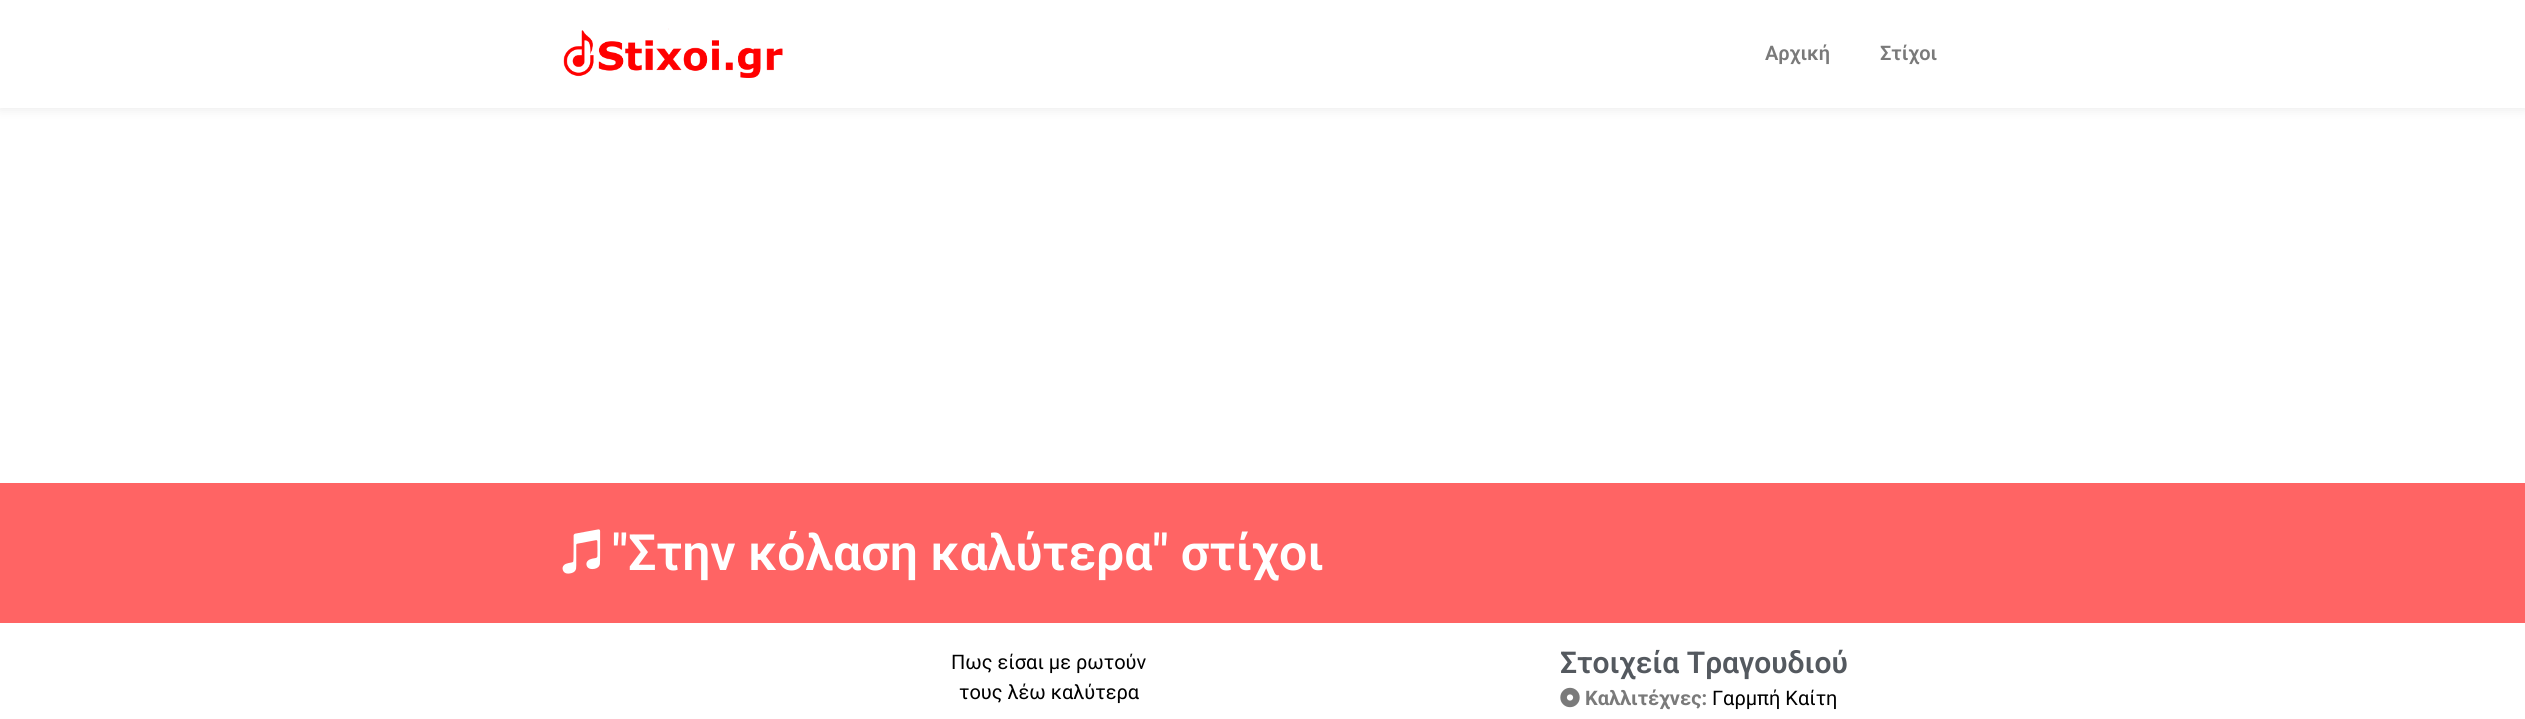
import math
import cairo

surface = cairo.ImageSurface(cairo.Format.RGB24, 2525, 719)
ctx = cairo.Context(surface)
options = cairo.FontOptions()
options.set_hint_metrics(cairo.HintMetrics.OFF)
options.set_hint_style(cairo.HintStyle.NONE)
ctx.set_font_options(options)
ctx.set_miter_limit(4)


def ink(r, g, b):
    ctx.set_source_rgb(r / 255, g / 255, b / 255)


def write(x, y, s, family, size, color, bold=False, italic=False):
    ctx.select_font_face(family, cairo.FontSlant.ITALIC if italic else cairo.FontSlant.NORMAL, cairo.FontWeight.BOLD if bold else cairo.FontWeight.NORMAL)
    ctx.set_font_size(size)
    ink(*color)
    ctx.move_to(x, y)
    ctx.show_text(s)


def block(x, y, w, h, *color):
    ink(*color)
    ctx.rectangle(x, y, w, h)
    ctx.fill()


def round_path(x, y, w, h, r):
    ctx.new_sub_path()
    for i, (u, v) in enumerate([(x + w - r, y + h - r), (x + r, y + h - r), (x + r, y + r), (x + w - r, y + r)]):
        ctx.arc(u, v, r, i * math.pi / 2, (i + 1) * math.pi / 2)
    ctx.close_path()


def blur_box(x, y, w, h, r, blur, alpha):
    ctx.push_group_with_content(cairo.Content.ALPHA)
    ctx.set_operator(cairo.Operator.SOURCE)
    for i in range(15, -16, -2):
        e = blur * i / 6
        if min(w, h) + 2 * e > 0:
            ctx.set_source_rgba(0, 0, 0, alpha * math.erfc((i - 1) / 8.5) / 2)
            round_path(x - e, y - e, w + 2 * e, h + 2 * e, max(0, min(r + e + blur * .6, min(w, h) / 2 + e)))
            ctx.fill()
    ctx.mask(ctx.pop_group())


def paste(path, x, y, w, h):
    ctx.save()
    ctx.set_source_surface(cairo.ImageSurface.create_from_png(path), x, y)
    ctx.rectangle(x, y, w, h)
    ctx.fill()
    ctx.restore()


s1 = dict(family="Roboto SemiBold", size=20, color=(122, 122, 122))
s2 = dict(family="Roboto SemiBold", size=50, color=(255, 255, 255))
s3 = dict(family="Roboto", size=20, color=(0, 0, 0))
s4 = dict(family="Roboto SemiBold", size=30, color=(84, 89, 95))
s5 = dict(family="Roboto", size=20, color=(122, 122, 122), bold=True)

ink(255, 255, 255)
ctx.paint()
ink(0, 0, 0)
blur_box(0, 0, 2525, 108, 0, 6, 0.1)
block(0, 0, 2525, 108, 255, 255, 255)
paste("pic1.png", 563, 28, 220, 50)
write(1765, 60, "Αρχική", **s1)
write(1880, 60, "Στίχοι", **s1)
block(0, 483, 2525, 140, 255, 100, 100)
paste("pic2.png", 562, 529, 39, 45)
write(612, 570, "\"Στην κόλαση καλύτερα\" στίχοι", **s2)
write(951, 669, "Πως είσαι με ρωτούν", **s3)
write(959, 699, "τους λέω καλύτερα", **s3)
write(1560, 673, "Στοιχεία Τραγουδιού", **s4)
paste("pic3.png", 1560, 687, 20, 21)
write(1585, 705, "Καλλιτέχνες:", **s5)
write(1712, 705, "Γαρμπή Καίτη", **s3)
surface.write_to_png("screenshot.png")
